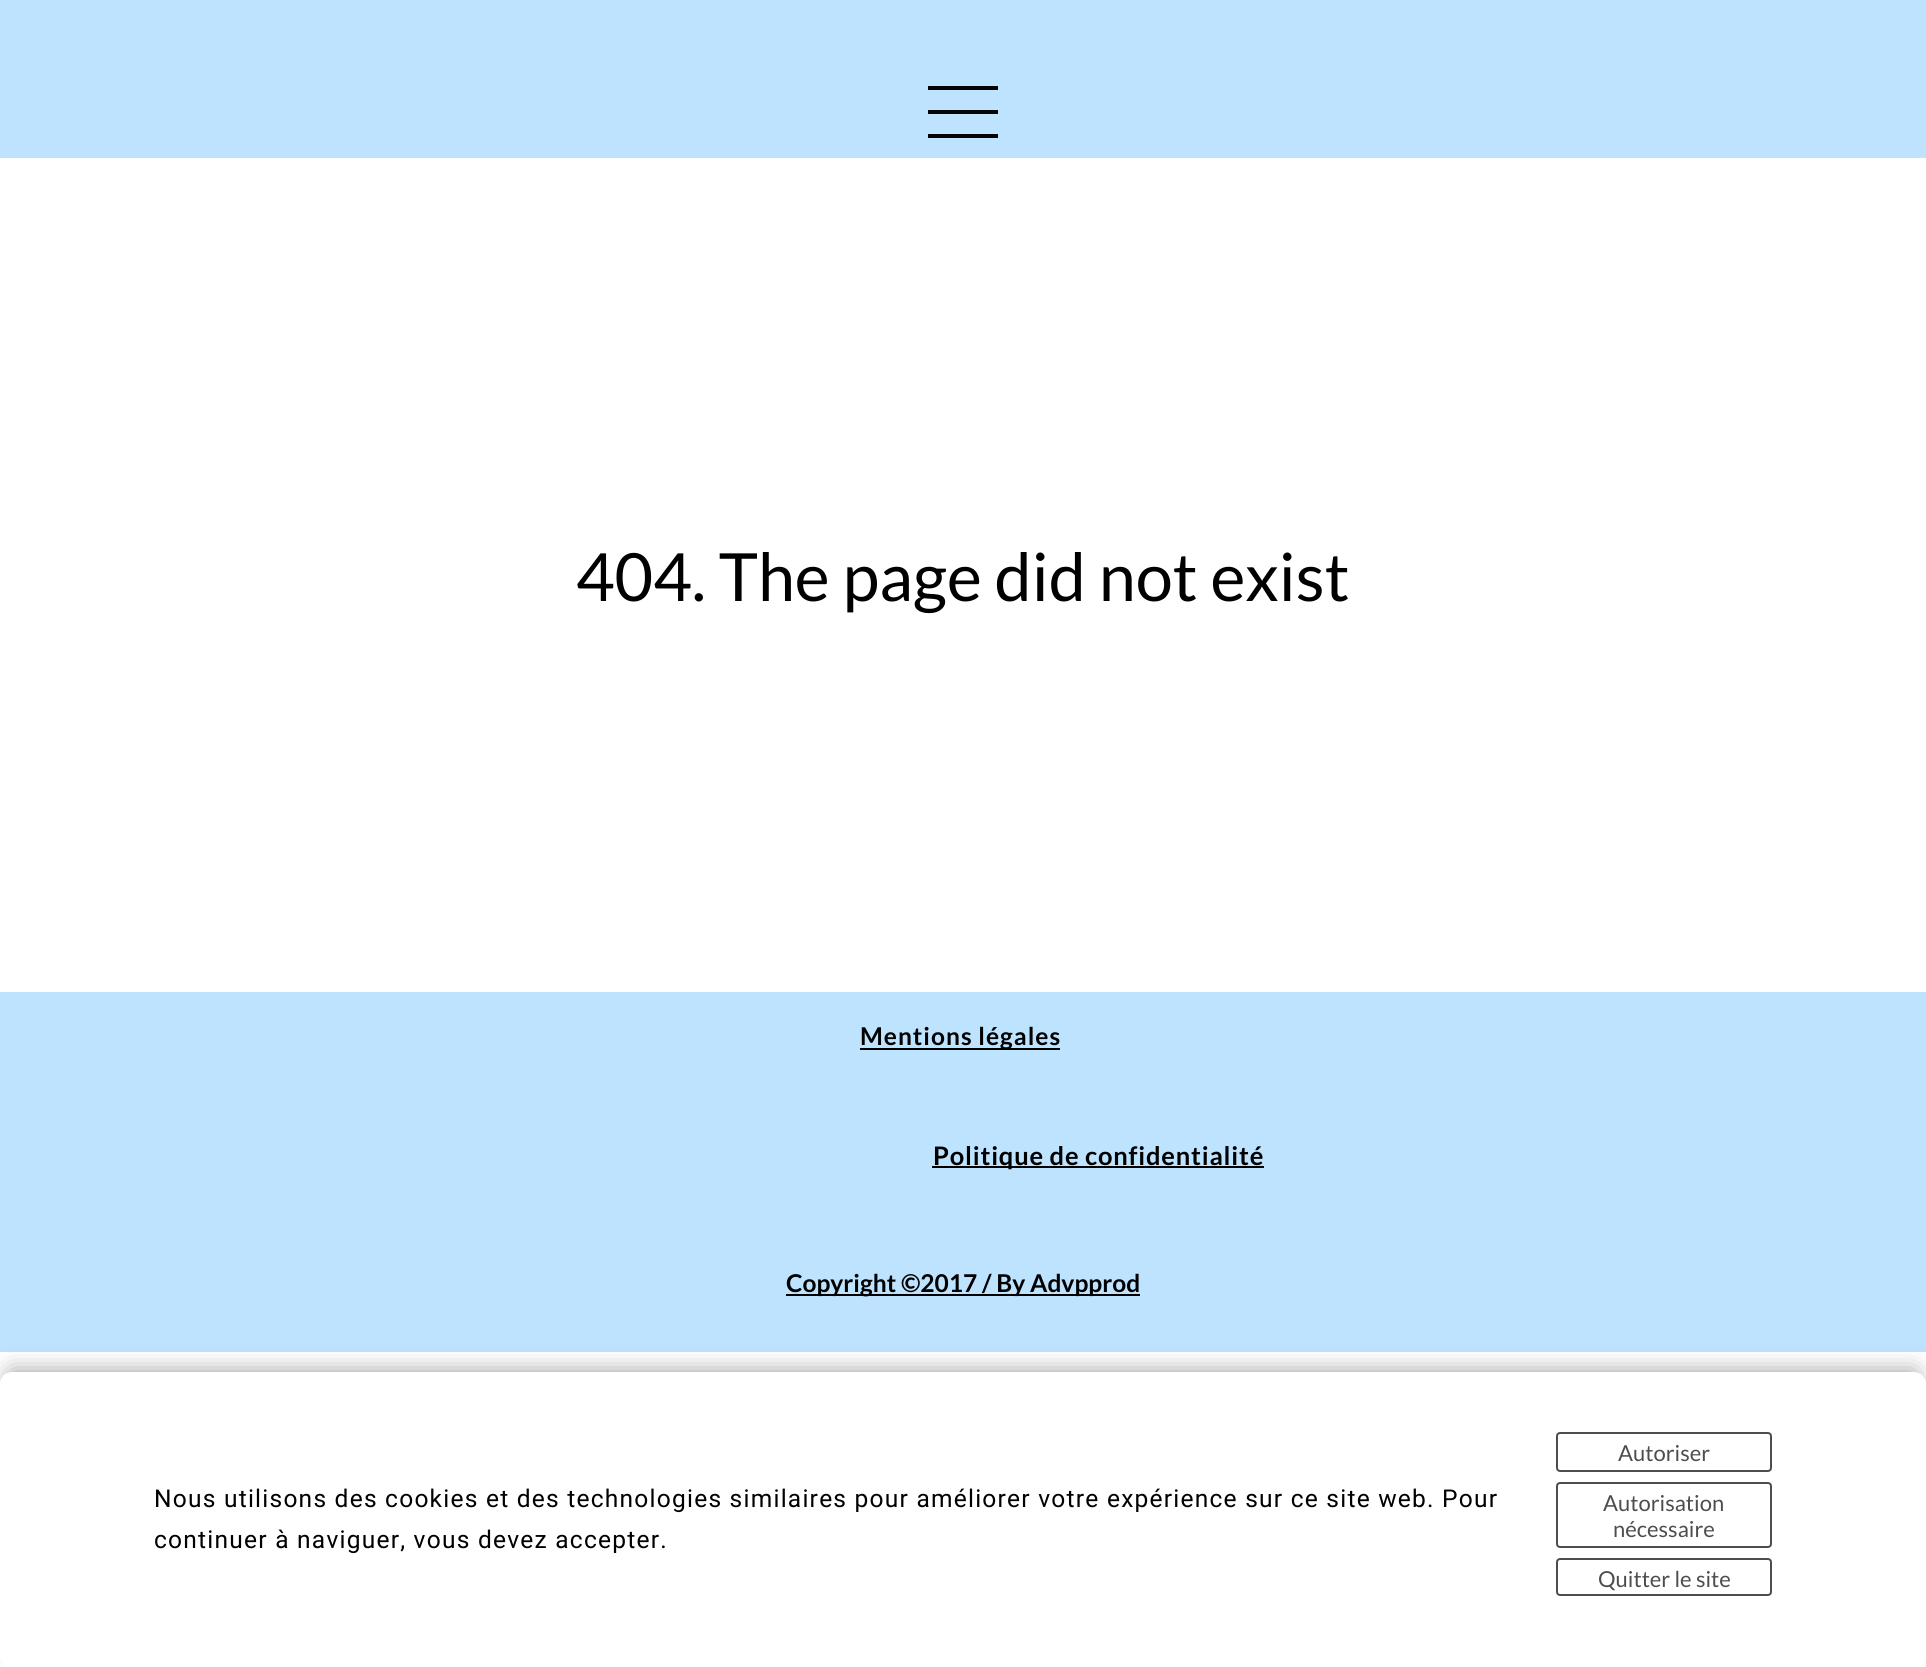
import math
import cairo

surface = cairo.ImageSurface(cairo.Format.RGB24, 1926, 1667)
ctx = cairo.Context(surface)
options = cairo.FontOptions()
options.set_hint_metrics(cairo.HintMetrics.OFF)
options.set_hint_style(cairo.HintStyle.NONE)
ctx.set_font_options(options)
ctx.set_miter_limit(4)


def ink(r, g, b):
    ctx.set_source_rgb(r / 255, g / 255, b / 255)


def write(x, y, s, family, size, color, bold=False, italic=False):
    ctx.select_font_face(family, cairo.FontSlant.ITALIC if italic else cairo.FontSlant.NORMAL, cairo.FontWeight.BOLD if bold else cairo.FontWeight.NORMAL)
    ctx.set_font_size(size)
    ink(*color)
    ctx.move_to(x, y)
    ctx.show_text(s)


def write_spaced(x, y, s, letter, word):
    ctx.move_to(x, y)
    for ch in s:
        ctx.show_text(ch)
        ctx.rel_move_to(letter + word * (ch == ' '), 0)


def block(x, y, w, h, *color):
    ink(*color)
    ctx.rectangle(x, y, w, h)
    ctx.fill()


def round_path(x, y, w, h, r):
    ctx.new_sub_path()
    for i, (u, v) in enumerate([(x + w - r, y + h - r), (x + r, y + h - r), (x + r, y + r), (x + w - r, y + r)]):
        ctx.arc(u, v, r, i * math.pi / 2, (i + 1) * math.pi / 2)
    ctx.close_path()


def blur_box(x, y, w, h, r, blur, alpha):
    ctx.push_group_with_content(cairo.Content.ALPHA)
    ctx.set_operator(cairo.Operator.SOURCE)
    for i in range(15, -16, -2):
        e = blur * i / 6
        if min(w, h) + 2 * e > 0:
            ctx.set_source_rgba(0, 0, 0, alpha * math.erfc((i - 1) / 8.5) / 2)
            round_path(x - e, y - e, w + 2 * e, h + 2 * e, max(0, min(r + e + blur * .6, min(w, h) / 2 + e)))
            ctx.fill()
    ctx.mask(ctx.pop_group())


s1 = dict(family="Lato", size=66.5, color=(0, 0, 0))
s2 = dict(family="Lato", size=24.53, color=(0, 0, 0), bold=True)
s3 = dict(family="Lato", size=22, color=(77, 77, 77))

ink(255, 255, 255)
ctx.paint()
block(0, 0, 1926, 158, 189, 227, 255)
block(928, 86, 70, 4, 3, 3, 3)
block(928, 110, 70, 4, 3, 3, 3)
block(928, 134, 70, 4, 3, 3, 3)
write(576, 601, "404. The page did not exist", **s1)
block(0, 992, 1926, 360, 189, 227, 255)
block(860, 1048, 200, 2, 2, 2, 2)
ctx.select_font_face("Lato", cairo.FontSlant.NORMAL, cairo.FontWeight.BOLD)
ctx.set_font_size(24.53)
ink(0, 0, 0)
write_spaced(860, 1045, "Mentions légales", 1, 0)
block(932, 1166, 332, 2, 0, 0, 0)
ctx.set_font_size(25.5)
write_spaced(933, 1165, "Politique de", 0.8, 0)
write_spaced(1085, 1165, "confidentialité", 0.8, 0)
block(786, 1294, 354, 2, 0, 0, 0)
write(786, 1292, "Copyright ©2017 / By Advpprod", **s2)
ink(0, 0, 0)
blur_box(10, 1372, 1906, 276, 2, 12, 0.4)
ink(255, 255, 255)
round_path(0, 1372, 1926, 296, 12)
ctx.fill()
ctx.select_font_face("Roboto")
ink(0, 0, 0)
write_spaced(154, 1507, "Nous utilisons des cookies et des technologies similaires pour améliorer votre expérience sur ce site web. Pour", 1.23, 0)
write_spaced(154, 1548, "continuer à naviguer, vous devez accepter.", 1.23, 0)
round_path(1557, 1433, 214, 38, 3)
ink(77, 77, 77)
ctx.stroke()
write(1618, 1461, "Autoriser", **s3)
round_path(1557, 1483, 214, 64, 3)
ctx.stroke()
write(1603, 1511, "Autorisation", **s3)
write(1613, 1537, "nécessaire", **s3)
round_path(1557, 1559, 214, 36, 3)
ctx.stroke()
write(1598, 1587, "Quitter le site", **s3)
surface.write_to_png("screenshot.png")
